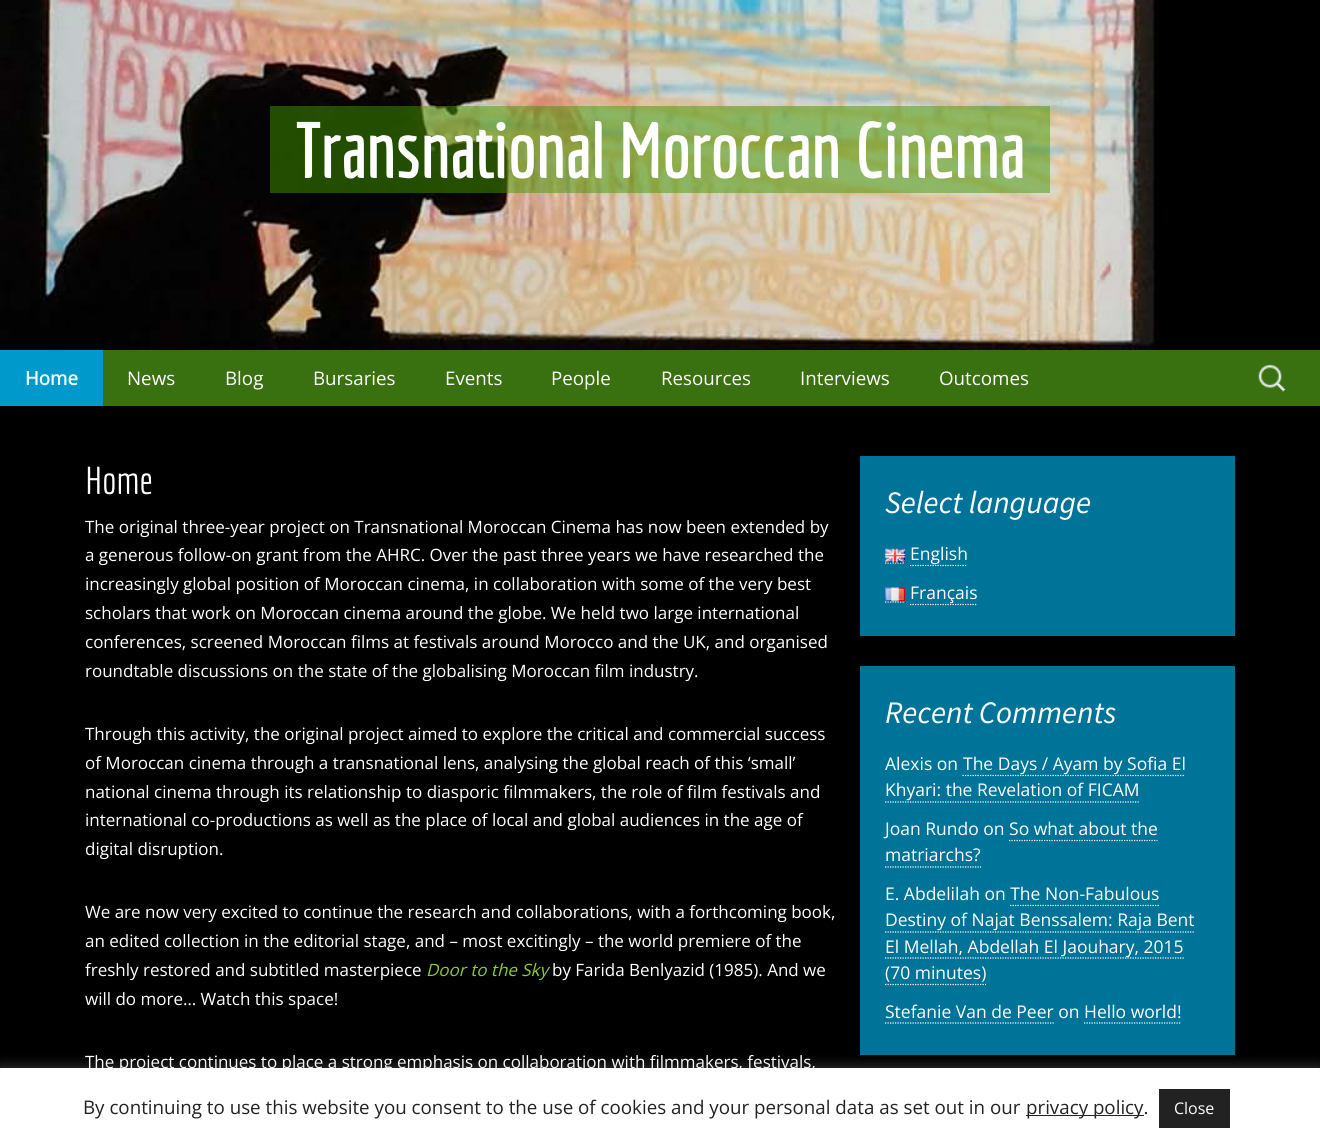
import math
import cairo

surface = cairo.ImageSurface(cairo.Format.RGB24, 1320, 1148)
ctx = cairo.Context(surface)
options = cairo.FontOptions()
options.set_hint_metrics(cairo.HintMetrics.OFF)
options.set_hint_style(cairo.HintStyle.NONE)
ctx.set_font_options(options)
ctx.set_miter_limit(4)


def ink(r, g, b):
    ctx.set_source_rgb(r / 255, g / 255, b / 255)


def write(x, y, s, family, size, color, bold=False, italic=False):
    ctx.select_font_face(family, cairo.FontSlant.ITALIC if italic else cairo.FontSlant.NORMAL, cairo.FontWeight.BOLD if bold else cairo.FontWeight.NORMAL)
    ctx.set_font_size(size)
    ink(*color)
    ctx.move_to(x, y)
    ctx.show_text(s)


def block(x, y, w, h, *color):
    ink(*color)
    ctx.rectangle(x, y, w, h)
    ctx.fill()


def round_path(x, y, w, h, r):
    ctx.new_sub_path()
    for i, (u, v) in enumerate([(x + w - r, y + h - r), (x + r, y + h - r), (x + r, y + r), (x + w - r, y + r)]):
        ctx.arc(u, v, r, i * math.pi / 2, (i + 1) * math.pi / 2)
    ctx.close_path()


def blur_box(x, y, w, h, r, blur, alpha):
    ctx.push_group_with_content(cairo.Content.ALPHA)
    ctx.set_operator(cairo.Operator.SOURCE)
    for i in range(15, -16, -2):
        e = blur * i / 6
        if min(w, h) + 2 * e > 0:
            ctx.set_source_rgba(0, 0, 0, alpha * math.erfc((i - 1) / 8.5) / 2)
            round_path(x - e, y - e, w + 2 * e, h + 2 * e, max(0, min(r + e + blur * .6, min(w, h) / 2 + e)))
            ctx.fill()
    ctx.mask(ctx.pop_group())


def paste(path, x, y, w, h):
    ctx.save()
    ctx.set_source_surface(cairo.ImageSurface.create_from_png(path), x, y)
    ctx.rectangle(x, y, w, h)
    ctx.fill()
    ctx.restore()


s1 = dict(family="Economica", size=75, color=(255, 255, 255), bold=True)
s2 = dict(family="Open Sans", size=18.75, color=(255, 255, 255), bold=True)
s3 = dict(family="Open Sans", size=18.75, color=(255, 255, 255))
s4 = dict(family="Economica", size=38, color=(255, 255, 255))
s5 = dict(family="Open Sans", size=17, color=(255, 255, 255))
s6 = dict(family="Open Sans", size=17, color=(143, 204, 51), italic=True)
s7 = dict(family="Source Sans Pro", size=31.25, color=(255, 255, 255), italic=True)
s8 = dict(family="Open Sans", size=17.5, color=(255, 255, 255))
s9 = dict(family="Open Sans", size=18.75, color=(34, 34, 34))
s10 = dict(family="Open Sans", size=16, color=(255, 255, 255))

ink(0, 0, 0)
ctx.paint()
paste("pic1.png", 0, 0, 1159, 350)
ctx.set_source_rgba(0.259, 0.6, 0, 0.5)
ctx.rectangle(270, 106, 780, 87)
ctx.fill()
write(295, 178, "Transnational Moroccan Cinema", **s1)
block(103, 350, 1217, 56, 57, 112, 16)
block(0, 350, 103, 56, 0, 153, 204)
write(25, 385, "Home", **s2)
write(127, 385, "News", **s3)
write(225, 385, "Blog", **s3)
write(313, 385, "Bursaries", **s3)
write(445, 385, "Events", **s3)
write(551, 385, "People", **s3)
write(661, 385, "Resources", **s3)
write(800, 385, "Interviews", **s3)
write(939, 385, "Outcomes", **s3)
paste("pic2.png", 1258, 364, 28, 28)
write(85, 494, "Home", **s4)
write(85, 533, "The original three-year project on Transnational Moroccan Cinema has now been extended by", **s5)
write(85, 561, "a generous follow-on grant from the AHRC. Over the past three years we have researched the", **s5)
write(85, 590, "increasingly global position of Moroccan cinema, in collaboration with some of the very best", **s5)
write(85, 619, "scholars that work on Moroccan cinema around the globe. We held two large international", **s5)
write(85, 648, "conferences, screened Moroccan films at festivals around Morocco and the UK, and organised", **s5)
write(85, 677, "roundtable discussions on the state of the globalising Moroccan film industry.", **s5)
write(85, 740, "Through this activity, the original project aimed to explore the critical and commercial success", **s5)
write(85, 769, "of Moroccan cinema through a transnational lens, analysing the global reach of this ‘small’", **s5)
write(85, 798, "national cinema through its relationship to diasporic filmmakers, the role of film festivals and", **s5)
write(85, 826, "international co-productions as well as the place of local and global audiences in the age of", **s5)
write(85, 855, "digital disruption.", **s5)
write(85, 918, "We are now very excited to continue the research and collaborations, with a forthcoming book,", **s5)
write(85, 947, "an edited collection in the editorial stage, and – most excitingly – the world premiere of the", **s5)
write(85, 976, "freshly restored and subtitled masterpiece", **s5)
write(426, 976, "Door to the Sky", **s6)
write(552, 976, "by Farida Benlyazid (1985). And we", **s5)
write(85, 1005, "will do more… Watch this space!", **s5)
write(85, 1068, "The project continues to place a strong emphasis on collaboration with filmmakers, festivals,", **s5)
block(860, 456, 375, 180, 0, 115, 153)
write(885, 513, "Select language", **s7)
ctx.new_path()
ctx.move_to(885, 563)
ctx.line_to(905, 563)
ctx.set_line_width(1.2)
ctx.set_dash([1.25, 1.25])
ctx.stroke()
paste("pic3.png", 885, 548, 20, 15)
ctx.new_path()
ctx.move_to(910, 565.5)
ctx.line_to(967.5, 565.5)
ctx.stroke()
write(910, 560, "English", **s8)
ctx.new_path()
ctx.move_to(885, 602)
ctx.line_to(905, 602)
ctx.stroke()
paste("pic4.png", 885, 587, 20, 15)
ctx.new_path()
ctx.move_to(910, 604.5)
ctx.line_to(977.5, 604.5)
ctx.stroke()
write(910, 599, "Français", **s8)
block(860, 666, 375, 389, 0, 115, 153)
write(885, 723, "Recent Comments", **s7)
write(885, 770, "Alexis on", **s8)
ctx.new_path()
ctx.move_to(962.5, 775.5)
ctx.line_to(1185, 775.5)
ctx.stroke()
write(963, 770, "The Days / Ayam by Sofia El", **s8)
write(885, 796, "Khyari: the Revelation of FICAM", **s8)
ctx.new_path()
ctx.move_to(885, 802)
ctx.line_to(1140, 802)
ctx.stroke()
write(885, 835, "Joan Rundo on So what about the", **s8)
write(885, 861, "matriarchs?", **s8)
ctx.new_path()
ctx.move_to(1009, 840.5)
ctx.line_to(1157.5, 840.5)
ctx.stroke()
ctx.new_path()
ctx.move_to(885, 867)
ctx.line_to(981, 867)
ctx.stroke()
write(885, 900, "E. Abdelilah on The Non-Fabulous", **s8)
write(885, 926, "Destiny of Najat Benssalem: Raja Bent", **s8)
ctx.new_path()
ctx.move_to(1010, 905.5)
ctx.line_to(1159, 905.5)
ctx.stroke()
ctx.new_path()
ctx.move_to(885, 932)
ctx.line_to(1195, 932)
ctx.stroke()
ctx.new_path()
ctx.move_to(885, 958)
ctx.line_to(1184, 958)
ctx.stroke()
write(885, 953, "El Mellah, Abdellah El Jaouhary, 2015", **s8)
write(885, 979, "(70 minutes)", **s8)
ctx.new_path()
ctx.move_to(885, 984.5)
ctx.line_to(986, 984.5)
ctx.stroke()
write(885, 1018, "Stefanie Van de Peer on Hello world!", **s8)
ctx.new_path()
ctx.move_to(885, 1023)
ctx.line_to(1054, 1023)
ctx.stroke()
ctx.new_path()
ctx.move_to(1084, 1023)
ctx.line_to(1181, 1023)
ctx.stroke()
ink(172, 171, 171)
blur_box(0, 1066, 1320, 82, 0, 6, 0.3)
block(0, 1068, 1320, 80, 255, 255, 255)
write(83, 1114, "By continuing to use this website you consent to the use of cookies and your personal data as set out in our", **s9)
block(1026, 1115, 118, 1, 34, 34, 34)
write(1026, 1114, "privacy policy.", **s9)
block(1159, 1089, 71, 39, 34, 34, 34)
write(1174, 1114, "Close", **s10)
surface.write_to_png("screenshot.png")
